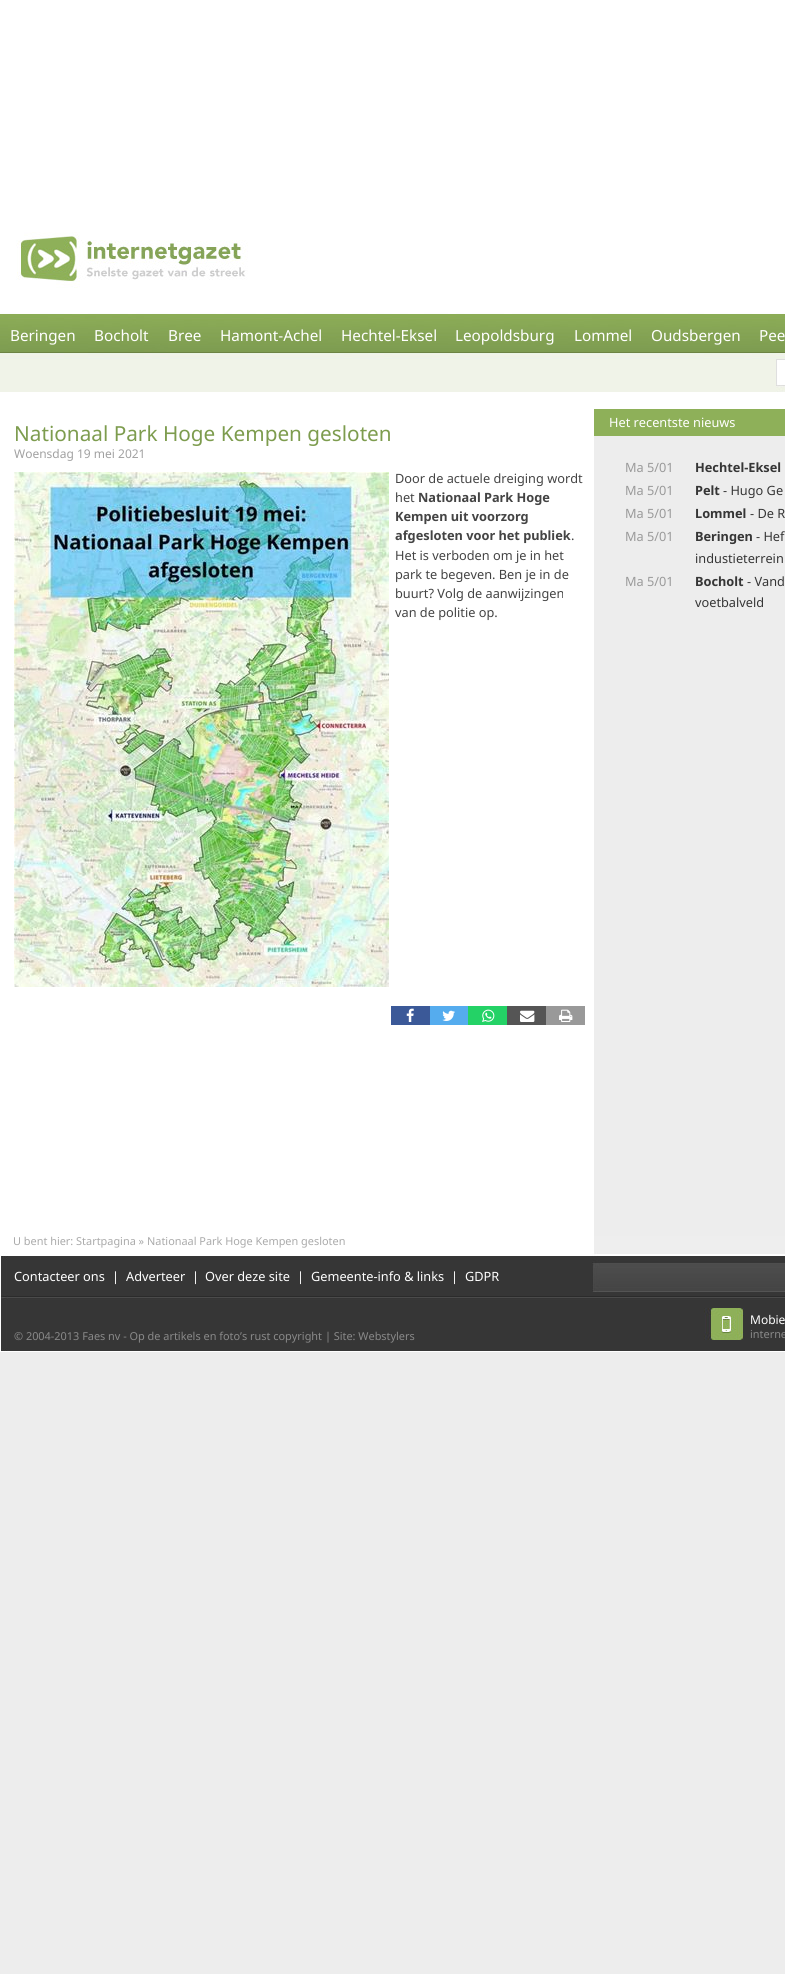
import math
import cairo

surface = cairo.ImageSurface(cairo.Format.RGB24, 785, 1974)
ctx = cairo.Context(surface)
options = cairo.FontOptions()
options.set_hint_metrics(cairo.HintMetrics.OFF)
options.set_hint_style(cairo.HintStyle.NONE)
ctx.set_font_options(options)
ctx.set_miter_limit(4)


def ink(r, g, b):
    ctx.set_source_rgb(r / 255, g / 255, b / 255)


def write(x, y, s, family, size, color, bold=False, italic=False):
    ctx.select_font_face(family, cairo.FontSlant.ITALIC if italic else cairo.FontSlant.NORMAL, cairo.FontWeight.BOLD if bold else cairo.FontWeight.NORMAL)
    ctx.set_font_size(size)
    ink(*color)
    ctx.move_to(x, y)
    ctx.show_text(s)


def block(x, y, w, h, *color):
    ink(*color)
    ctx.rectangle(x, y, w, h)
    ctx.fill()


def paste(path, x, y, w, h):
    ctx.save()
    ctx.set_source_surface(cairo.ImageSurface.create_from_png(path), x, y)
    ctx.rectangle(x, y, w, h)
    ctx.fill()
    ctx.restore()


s1 = dict(family="Noto Sans", size=15.25, color=(255, 255, 255))
s2 = dict(family="Noto Sans", size=20.75, color=(125, 156, 78))
s3 = dict(family="Noto Sans", size=12, color=(161, 161, 161))
s4 = dict(family="Noto Sans", size=12.75, color=(68, 68, 68))
s5 = dict(family="Noto Sans", size=12.75, color=(68, 68, 68), bold=True)
s6 = dict(family="Noto Sans", size=12.75, color=(255, 255, 255))
s7 = dict(family="Noto Sans", size=12.75, color=(154, 154, 154))
s8 = dict(family="Noto Sans", size=12.75, color=(54, 54, 54), bold=True)
s9 = dict(family="Noto Sans", size=12.75, color=(54, 54, 54))
s10 = dict(family="Noto Sans", size=10.9, color=(170, 170, 170))
s11 = dict(family="Noto Sans", size=10.9, color=(137, 137, 137))
s12 = dict(family="Noto Sans", size=12, color=(255, 255, 255))

ink(237, 237, 237)
ctx.paint()
block(0, 0, 785, 200, 255, 255, 255)
block(0, 392, 594, 844, 255, 255, 255)
paste("pic1.png", 0, 200, 785, 192)
write(10, 341, "Beringen", **s1)
write(94, 341, "Bocholt", **s1)
write(168, 341, "Bree", **s1)
write(220, 341, "Hamont-Achel", **s1)
write(341, 341, "Hechtel-Eksel", **s1)
write(455, 341, "Leopoldsburg", **s1)
write(574, 341, "Lommel", **s1)
write(651, 341, "Oudsbergen", **s1)
write(759, 341, "Pee", **s1)
write(14, 441, "Nationaal Park Hoge Kempen gesloten", **s2)
write(14, 458, "Woensdag 19 mei 2021", **s3)
paste("pic2.png", 14, 472, 375, 515)
write(395, 483, "Door de actuele dreiging wordt", **s4)
write(395, 502, "het", **s4)
write(418, 502, "Nationaal Park Hoge", **s5)
write(395, 521, "Kempen uit voorzorg", **s5)
write(395, 540, "afgesloten voor het publiek", **s5)
write(571, 540, ".", **s4)
write(395, 560, "Het is verboden om je in het", **s4)
write(395, 579, "park te begeven. Ben je in de", **s4)
write(395, 598, "buurt? Volg de aanwijzingen", **s4)
write(395, 617, "van de politie op.", **s4)
block(391, 1006, 39, 19, 59, 89, 152)
paste("pic3.png", 406, 1008, 8, 14)
block(430, 1006, 38, 19, 85, 172, 238)
paste("pic4.png", 442, 1010, 13, 11)
block(468, 1006, 39, 19, 36, 210, 102)
paste("pic5.png", 482, 1009, 13, 13)
block(507, 1006, 39, 19, 85, 85, 85)
paste("pic6.png", 520, 1010, 15, 12)
block(546, 1006, 39, 19, 153, 153, 153)
paste("pic7.png", 559, 1009, 14, 13)
block(594, 392, 191, 17, 255, 255, 255)
block(594, 409, 191, 27, 142, 176, 89)
write(609, 427, "Het recentste nieuws", **s6)
write(625, 472, "Ma 5/01", **s7)
write(695, 472, "Hechtel-Eksel", **s8)
write(625, 495, "Ma 5/01", **s7)
write(695, 495, "Pelt", **s8)
write(723, 495, "- Hugo Ge", **s9)
write(625, 518, "Ma 5/01", **s7)
write(695, 518, "Lommel", **s8)
write(750, 518, "- De R", **s9)
write(625, 541, "Ma 5/01", **s7)
write(695, 541, "Beringen", **s8)
write(756, 541, "- Hef", **s9)
write(695, 563, "industieterrein", **s9)
write(625, 586, "Ma 5/01", **s7)
write(695, 586, "Bocholt", **s8)
write(747, 586, "- Vand", **s9)
write(695, 607, "voetbalveld", **s9)
paste("pic8.png", 0, 1236, 785, 116)
write(13, 1245, "U bent hier: Startpagina » Nationaal Park Hoge Kempen gesloten", **s10)
write(14, 1281, "Contacteer ons", **s6)
write(112, 1281, "|", **s6)
write(126, 1281, "Adverteer", **s6)
write(192, 1281, "|", **s6)
write(205, 1281, "Over deze site", **s6)
write(297, 1281, "|", **s6)
write(311, 1281, "Gemeente-info & links", **s6)
write(451, 1281, "|", **s6)
write(465, 1281, "GDPR", **s6)
write(14, 1340, "© 2004-2013 Faes nv - Op de artikels en foto’s rust copyright | Site: Webstylers", **s11)
write(750, 1324, "Mobie", **s12)
write(750, 1338, "interne", **s11)
surface.write_to_png("screenshot.png")
